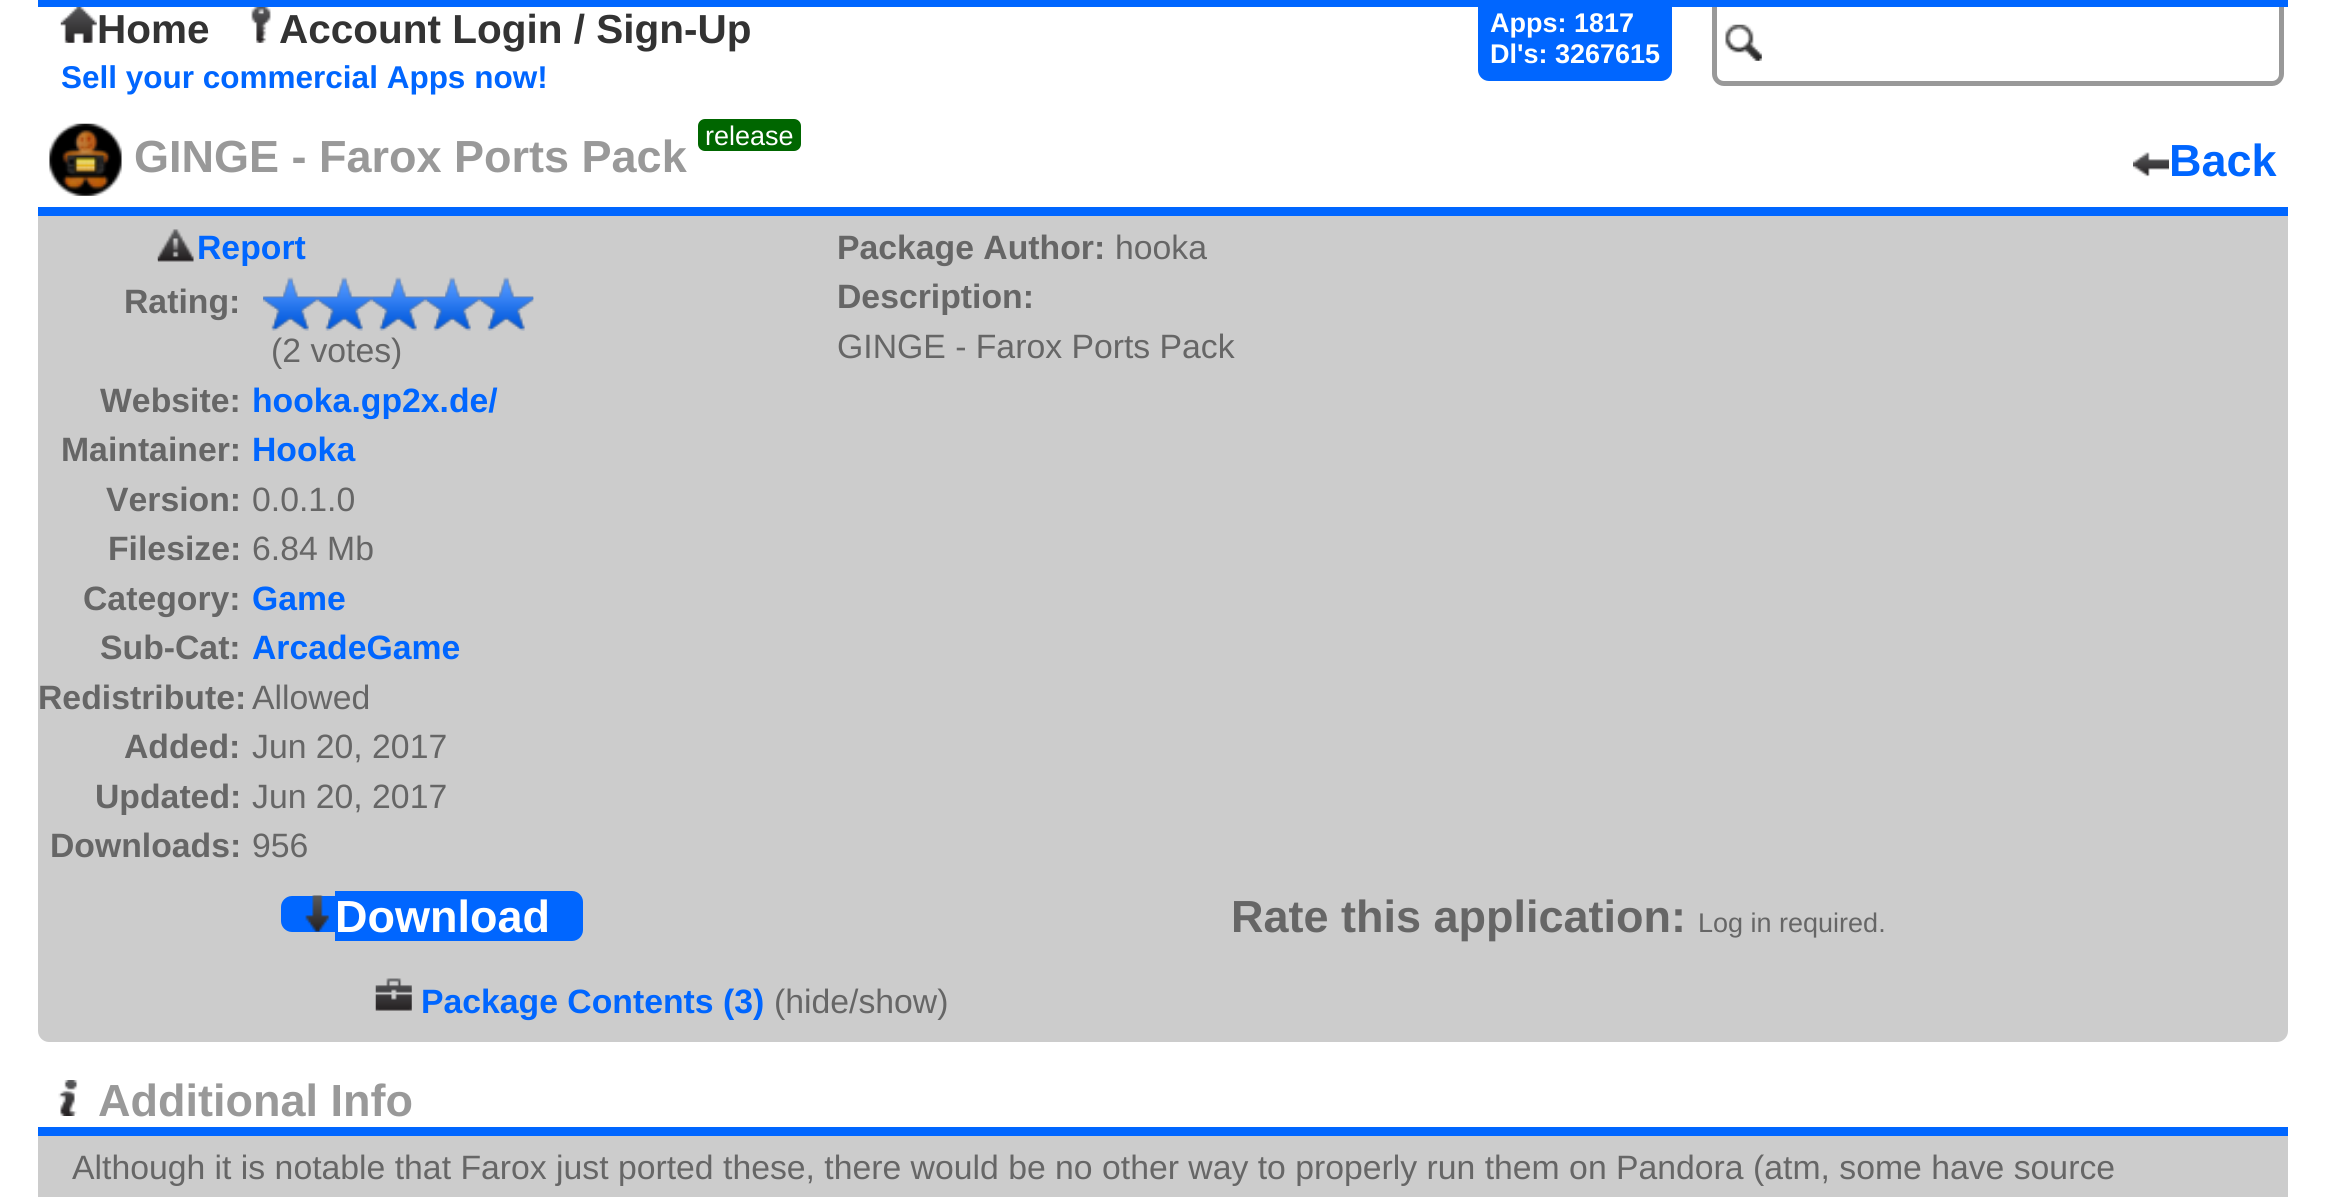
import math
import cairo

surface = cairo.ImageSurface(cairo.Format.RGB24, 2326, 1197)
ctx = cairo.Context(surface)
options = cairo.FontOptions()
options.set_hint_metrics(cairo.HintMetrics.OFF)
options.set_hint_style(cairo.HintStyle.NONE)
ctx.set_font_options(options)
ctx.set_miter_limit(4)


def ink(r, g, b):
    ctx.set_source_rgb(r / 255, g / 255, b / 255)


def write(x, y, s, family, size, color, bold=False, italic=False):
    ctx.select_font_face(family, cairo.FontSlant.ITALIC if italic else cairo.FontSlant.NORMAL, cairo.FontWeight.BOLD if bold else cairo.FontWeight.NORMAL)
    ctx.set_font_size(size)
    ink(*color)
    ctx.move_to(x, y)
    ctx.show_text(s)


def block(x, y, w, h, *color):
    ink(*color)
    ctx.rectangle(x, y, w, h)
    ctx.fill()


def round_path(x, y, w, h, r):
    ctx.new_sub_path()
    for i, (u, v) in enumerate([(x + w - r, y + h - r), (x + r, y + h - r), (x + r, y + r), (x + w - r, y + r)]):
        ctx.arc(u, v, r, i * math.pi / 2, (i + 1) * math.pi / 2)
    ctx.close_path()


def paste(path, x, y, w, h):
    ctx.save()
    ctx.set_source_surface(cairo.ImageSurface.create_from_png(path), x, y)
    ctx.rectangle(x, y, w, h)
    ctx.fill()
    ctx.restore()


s1 = dict(family="Liberation Sans", size=40.5, color=(51, 51, 51), bold=True)
s2 = dict(family="Liberation Sans", size=27, color=(255, 255, 255), bold=True)
s3 = dict(family="Liberation Sans", size=31.5, color=(0, 102, 255), bold=True)
s4 = dict(family="Liberation Sans", size=27, color=(255, 255, 255))
s5 = dict(family="Liberation Sans", size=45, color=(153, 153, 153), bold=True)
s6 = dict(family="Liberation Sans", size=45, color=(0, 102, 255), bold=True)
s7 = dict(family="Liberation Sans", size=33.75, color=(0, 102, 255), bold=True)
s8 = dict(family="Liberation Sans", size=33.75, color=(102, 102, 102), bold=True)
s9 = dict(family="Liberation Sans", size=33.75, color=(102, 102, 102))
s10 = dict(family="Liberation Sans", size=45, color=(255, 255, 255), bold=True)
s11 = dict(family="Liberation Sans", size=45, color=(102, 102, 102), bold=True)
s12 = dict(family="Liberation Sans", size=27, color=(102, 102, 102))

ink(255, 255, 255)
ctx.paint()
paste("pic3.png", 1725, 24, 37, 37)
ink(153, 153, 153)
ctx.set_fill_rule(cairo.FillRule.EVEN_ODD)
ctx.new_path()
ctx.move_to(1712, 2)
ctx.line_to(2284, 2)
ctx.line_to(2284, 74)
ctx.curve_to(2284, 80, 2279, 86, 2272, 86)
ctx.line_to(1724, 86)
ctx.curve_to(1717, 86, 1712, 80, 1712, 74)
ctx.close_path()
ctx.move_to(1717, 2)
ctx.line_to(2279, 2)
ctx.line_to(2279, 74)
ctx.curve_to(2279, 78, 2276, 81, 2272, 81)
ctx.line_to(1724, 81)
ctx.curve_to(1720, 81, 1717, 78, 1717, 74)
ctx.close_path()
ctx.fill()
block(38, 0, 2250, 7, 0, 102, 255)
paste("pic1.png", 60, 7, 37, 36)
write(97, 43, "Home", **s1)
paste("pic2.png", 251, 7, 20, 36)
write(279, 43, "Account Login / Sign-Up", **s1)
ink(0, 102, 255)
ctx.new_path()
ctx.move_to(1478, 7)
ctx.line_to(1672, 7)
ctx.line_to(1672, 70)
ctx.curve_to(1672, 76, 1667, 81, 1661, 81)
ctx.line_to(1489, 81)
ctx.curve_to(1483, 81, 1478, 76, 1478, 70)
ctx.close_path()
ctx.fill()
write(1490, 32, "Apps: 1817", **s2)
write(1490, 63, "Dl's: 3267615", **s2)
write(61, 88, "Sell your commercial Apps now!", **s3)
ink(204, 204, 204)
ctx.new_path()
ctx.move_to(38, 135)
ctx.line_to(2288, 135)
ctx.line_to(2288, 1031)
ctx.curve_to(2288, 1037, 2283, 1042, 2277, 1042)
ctx.line_to(49, 1042)
ctx.curve_to(43, 1042, 38, 1037, 38, 1031)
ctx.close_path()
ctx.fill()
block(38, 135, 2250, 72, 255, 255, 255)
block(38, 207, 2250, 9, 0, 102, 255)
paste("pic4.png", 49, 123, 73, 73)
ink(0, 102, 0)
round_path(698, 119, 103, 32, 7)
ctx.fill()
write(705, 145, "release", **s4)
write(134, 172, "GINGE - Farox Ports Pack", **s5)
paste("pic5.png", 2133, 152, 36, 25)
write(2169, 176, "Back", **s6)
paste("pic6.png", 157, 229, 37, 33)
write(197, 259, "Report", **s7)
write(124, 313, "Rating:", **s8)
paste("pic7.png", 263, 277, 271, 54)
paste("pic8.png", 263, 277, 271, 54)
write(271, 362, "(2 votes)", **s9)
write(100, 412, "Website:", **s8)
write(252, 412, "hooka.gp2x.de/", **s7)
write(61, 461, "Maintainer:", **s8)
write(252, 461, "Hooka", **s7)
write(106, 511, "Version:", **s8)
write(252, 511, "0.0.1.0", **s9)
write(108, 560, "Filesize:", **s8)
write(252, 560, "6.84 Mb", **s9)
write(83, 610, "Category:", **s8)
write(252, 610, "Game", **s7)
write(100, 659, "Sub-Cat:", **s8)
write(252, 659, "ArcadeGame", **s7)
write(38, 709, "Redistribute:", **s8)
write(252, 709, "Allowed", **s9)
write(124, 758, "Added:", **s8)
write(252, 758, "Jun 20, 2017", **s9)
write(95, 808, "Updated:", **s8)
write(252, 808, "Jun 20, 2017", **s9)
write(50, 857, "Downloads:", **s8)
write(252, 857, "956", **s9)
write(837, 259, "Package Author:", **s8)
write(1115, 259, "hooka", **s9)
write(837, 308, "Description:", **s8)
write(837, 358, "GINGE - Farox Ports Pack", **s9)
ink(0, 102, 255)
ctx.new_path()
ctx.move_to(292, 896)
ctx.line_to(335, 896)
ctx.line_to(335, 932)
ctx.line_to(292, 932)
ctx.curve_to(286, 932, 281, 927, 281, 921)
ctx.line_to(281, 907)
ctx.curve_to(281, 901, 286, 896, 292, 896)
ctx.close_path()
ctx.fill()
paste("pic9.png", 305, 895, 25, 37)
ctx.new_path()
ctx.move_to(335, 891)
ctx.line_to(572, 891)
ctx.curve_to(578, 891, 583, 896, 583, 902)
ctx.line_to(583, 930)
ctx.curve_to(583, 936, 578, 941, 572, 941)
ctx.line_to(335, 941)
ctx.close_path()
ctx.fill()
write(335, 932, "Download", **s10)
write(1231, 932, "Rate this application:", **s11)
write(1698, 932, "Log in required.", **s12)
paste("pic10.png", 375, 978, 37, 33)
write(421, 1013, "Package Contents (3)", **s7)
write(774, 1013, "(hide/show)", **s9)
block(38, 1136, 2250, 61, 204, 204, 204)
block(38, 1127, 2250, 9, 0, 102, 255)
paste("pic11.png", 58, 1080, 20, 36)
write(98, 1116, "Additional Info", **s5)
write(72, 1179, "Although it is notable that Farox just ported these, there would be no other way to properly run them on Pandora (atm, some have source", **s9)
surface.write_to_png("screenshot.png")
